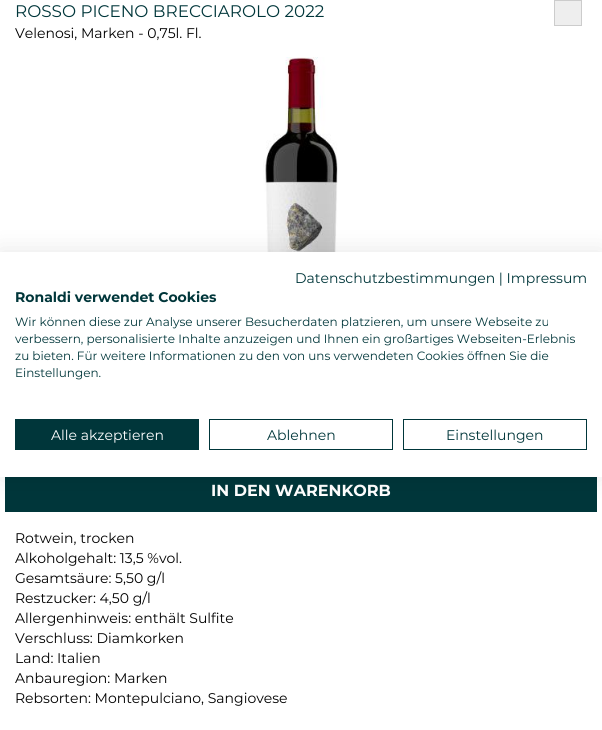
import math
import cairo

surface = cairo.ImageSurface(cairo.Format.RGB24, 602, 730)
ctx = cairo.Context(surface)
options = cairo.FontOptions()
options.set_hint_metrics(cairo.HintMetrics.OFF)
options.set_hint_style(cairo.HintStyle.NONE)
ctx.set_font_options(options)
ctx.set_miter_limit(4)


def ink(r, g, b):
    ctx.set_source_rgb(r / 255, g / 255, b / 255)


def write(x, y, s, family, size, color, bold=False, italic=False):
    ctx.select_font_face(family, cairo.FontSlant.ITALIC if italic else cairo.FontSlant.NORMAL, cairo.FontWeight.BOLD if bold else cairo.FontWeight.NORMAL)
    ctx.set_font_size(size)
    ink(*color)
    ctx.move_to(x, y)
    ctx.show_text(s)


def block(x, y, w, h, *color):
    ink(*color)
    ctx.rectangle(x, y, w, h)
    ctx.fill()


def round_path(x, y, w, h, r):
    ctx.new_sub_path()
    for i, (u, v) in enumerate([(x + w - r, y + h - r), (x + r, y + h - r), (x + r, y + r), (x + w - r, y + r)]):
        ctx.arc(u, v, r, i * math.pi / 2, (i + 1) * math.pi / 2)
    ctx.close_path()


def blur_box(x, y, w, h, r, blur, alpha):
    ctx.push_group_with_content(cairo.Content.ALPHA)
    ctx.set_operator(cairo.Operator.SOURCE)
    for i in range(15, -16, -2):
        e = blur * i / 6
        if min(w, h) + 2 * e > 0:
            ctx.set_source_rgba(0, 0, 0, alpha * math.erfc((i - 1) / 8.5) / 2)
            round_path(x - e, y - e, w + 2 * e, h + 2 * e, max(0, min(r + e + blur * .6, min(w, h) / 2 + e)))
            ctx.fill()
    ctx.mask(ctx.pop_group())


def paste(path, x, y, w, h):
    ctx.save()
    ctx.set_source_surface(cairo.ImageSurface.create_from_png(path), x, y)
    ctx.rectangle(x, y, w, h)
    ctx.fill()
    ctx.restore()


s1 = dict(family="Montserrat", size=16.8, color=(0, 54, 58))
s2 = dict(family="Montserrat", size=14, color=(0, 0, 0))
s3 = dict(family="Montserrat", size=16, color=(255, 255, 255), bold=True)
s4 = dict(family="Montserrat", size=14, color=(0, 54, 58))
s5 = dict(family="Montserrat", size=14, color=(0, 54, 58), bold=True)
s6 = dict(family="Montserrat", size=12, color=(0, 54, 58))
s7 = dict(family="Montserrat", size=14, color=(255, 255, 255))

ink(255, 255, 255)
ctx.paint()
write(15, 17, "ROSSO PICENO BRECCIAROLO 2022", **s1)
write(15, 38, "Velenosi, Marken - 0,75l. Fl.", **s2)
ink(238, 238, 238)
ctx.rectangle(554.5, 0.5, 27, 25)
ctx.fill_preserve()
ink(204, 204, 204)
ctx.set_line_width(1)
ctx.stroke()
paste("pic1.png", 263, 57, 75, 195)
block(5, 477, 592, 35, 0, 54, 58)
write(211, 496, "IN DEN WARENKORB", **s3)
write(15, 543, "Rotwein, trocken", **s2)
write(15, 563, "Alkoholgehalt: 13,5 %vol.", **s2)
write(15, 583, "Gesamtsäure: 5,50 g/l", **s2)
write(15, 603, "Restzucker: 4,50 g/l", **s2)
write(15, 623, "Allergenhinweis: enthält Sulfite", **s2)
write(15, 643, "Verschluss: Diamkorken", **s2)
write(15, 663, "Land: Italien", **s2)
write(15, 683, "Anbauregion: Marken", **s2)
write(15, 703, "Rebsorten: Montepulciano, Sangiovese", **s2)
ink(0, 0, 0)
blur_box(0, 252, 602, 225, 0, 12, 0.1)
block(0, 252, 602, 225, 255, 255, 255)
write(295, 283, "Datenschutzbestimmungen | Impressum", **s4)
write(15, 302, "Ronaldi verwendet Cookies", **s5)
write(15, 326, "Wir können diese zur Analyse unserer Besucherdaten platzieren, um unsere Webseite zu", **s6)
write(15, 343, "verbessern, personalisierte Inhalte anzuzeigen und Ihnen ein großartiges Webseiten-Erlebnis", **s6)
write(15, 360, "zu bieten. Für weitere Informationen zu den von uns verwendeten Cookies öffnen Sie die", **s6)
write(15, 377, "Einstellungen.", **s6)
block(15, 419, 184, 31, 0, 54, 58)
write(51, 440, "Alle akzeptieren", **s7)
ctx.rectangle(209.5, 419.5, 183, 30)
ink(0, 54, 58)
ctx.stroke()
write(267, 440, "Ablehnen", **s4)
ctx.rectangle(403.5, 419.5, 183, 30)
ctx.stroke()
write(446, 440, "Einstellungen", **s4)
surface.write_to_png("screenshot.png")
